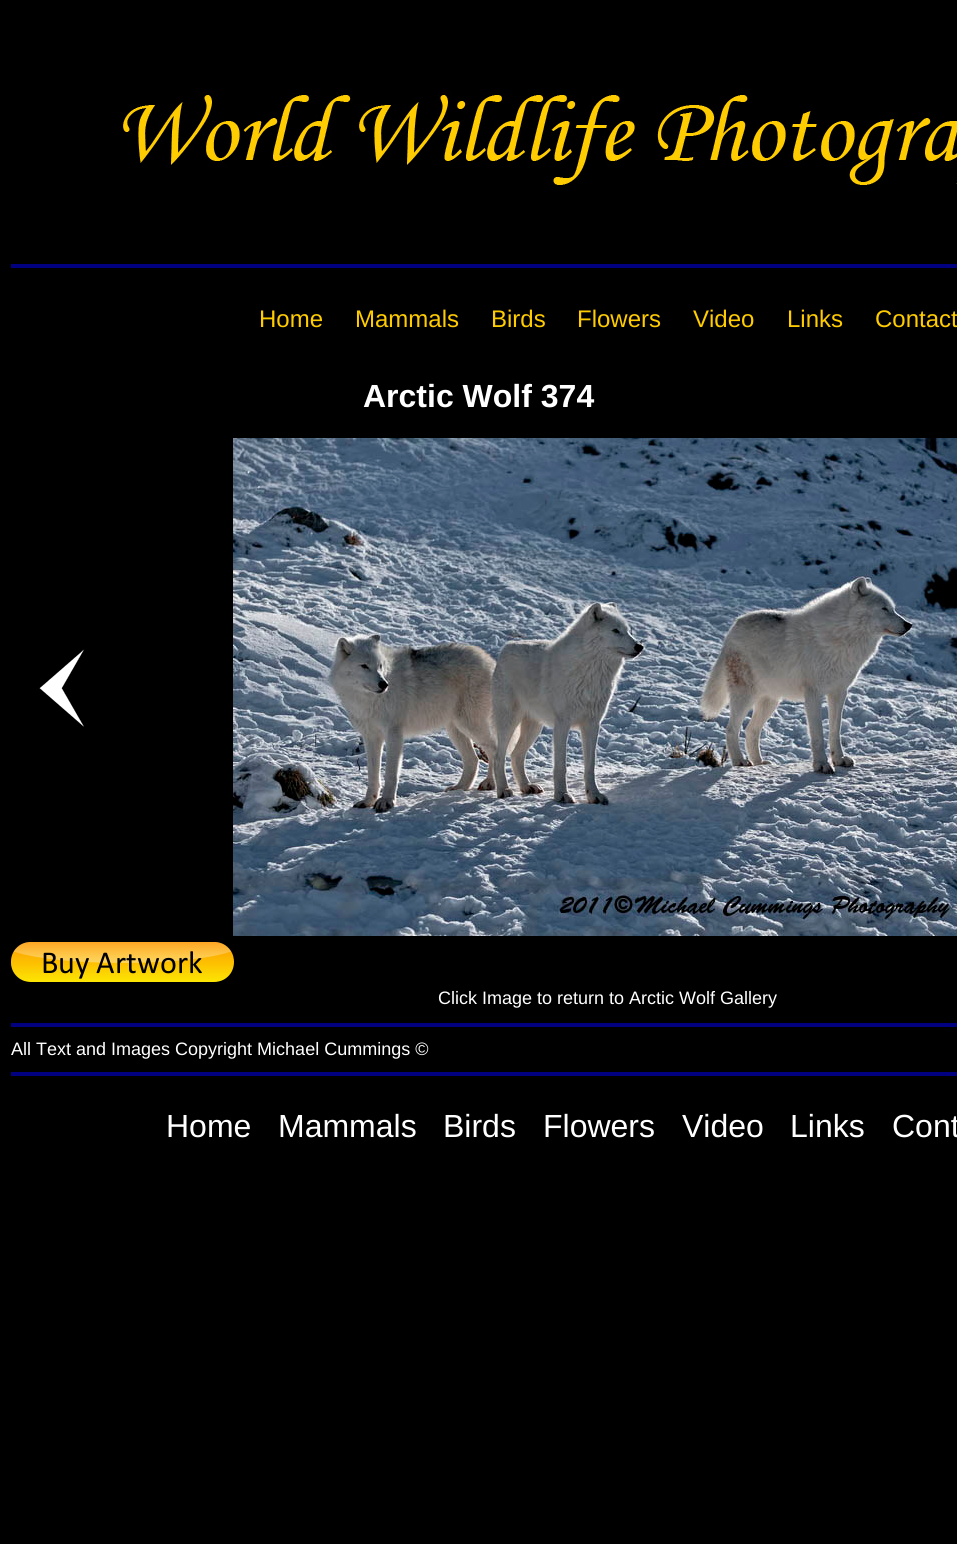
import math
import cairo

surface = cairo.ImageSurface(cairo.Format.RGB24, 957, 1544)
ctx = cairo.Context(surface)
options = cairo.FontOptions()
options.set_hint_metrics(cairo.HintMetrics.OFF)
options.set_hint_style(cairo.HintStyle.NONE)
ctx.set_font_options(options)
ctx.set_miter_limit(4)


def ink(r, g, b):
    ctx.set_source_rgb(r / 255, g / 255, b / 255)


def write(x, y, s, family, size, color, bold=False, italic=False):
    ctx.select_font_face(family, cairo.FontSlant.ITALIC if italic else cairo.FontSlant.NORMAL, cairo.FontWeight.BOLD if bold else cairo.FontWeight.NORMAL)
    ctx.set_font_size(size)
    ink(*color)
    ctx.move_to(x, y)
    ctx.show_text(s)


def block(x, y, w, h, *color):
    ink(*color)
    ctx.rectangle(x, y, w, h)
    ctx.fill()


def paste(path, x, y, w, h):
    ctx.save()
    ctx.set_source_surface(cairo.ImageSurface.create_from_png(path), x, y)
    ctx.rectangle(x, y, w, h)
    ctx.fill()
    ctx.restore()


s1 = dict(family="Liberation Sans", size=24, color=(255, 204, 0))
s2 = dict(family="Liberation Sans", size=32, color=(255, 255, 255), bold=True)
s3 = dict(family="Liberation Sans", size=18, color=(255, 255, 255))
s4 = dict(family="Liberation Sans", size=32, color=(255, 255, 255))

ink(0, 0, 0)
ctx.paint()
paste("pic1.png", 123, 90, 834, 95)
block(11, 264, 946, 4, 0, 0, 128)
write(259, 327, "Home", **s1)
write(355, 327, "Mammals", **s1)
write(491, 327, "Birds", **s1)
write(577, 327, "Flowers", **s1)
write(693, 327, "Video", **s1)
write(787, 327, "Links", **s1)
write(875, 327, "Contact", **s1)
write(363, 407, "Arctic Wolf 374", **s2)
paste("pic2.png", 39, 649, 46, 78)
paste("pic3.png", 233, 438, 724, 498)
paste("pic4.png", 11, 942, 223, 40)
write(438, 1004, "Click Image to return to Arctic Wolf Gallery", **s3)
block(11, 1023, 946, 4, 0, 0, 128)
write(11, 1055, "All Text and Images Copyright Michael Cummings ©", **s3)
block(11, 1072, 946, 4, 0, 0, 128)
write(166, 1137, "Home", **s4)
write(278, 1137, "Mammals", **s4)
write(443, 1137, "Birds", **s4)
write(543, 1137, "Flowers", **s4)
write(682, 1137, "Video", **s4)
write(790, 1137, "Links", **s4)
write(892, 1137, "Cont", **s4)
surface.write_to_png("screenshot.png")
